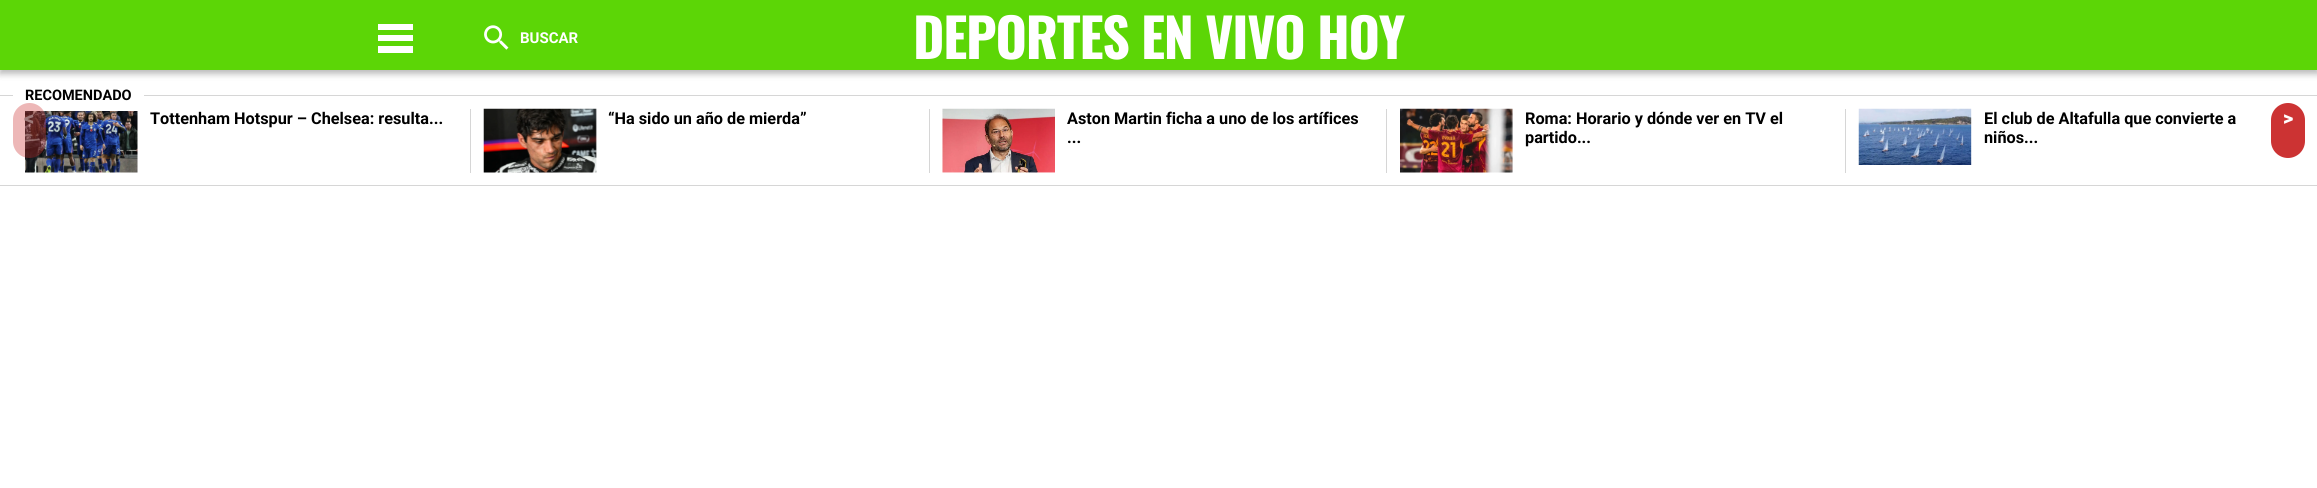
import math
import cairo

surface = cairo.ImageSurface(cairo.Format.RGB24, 2317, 488)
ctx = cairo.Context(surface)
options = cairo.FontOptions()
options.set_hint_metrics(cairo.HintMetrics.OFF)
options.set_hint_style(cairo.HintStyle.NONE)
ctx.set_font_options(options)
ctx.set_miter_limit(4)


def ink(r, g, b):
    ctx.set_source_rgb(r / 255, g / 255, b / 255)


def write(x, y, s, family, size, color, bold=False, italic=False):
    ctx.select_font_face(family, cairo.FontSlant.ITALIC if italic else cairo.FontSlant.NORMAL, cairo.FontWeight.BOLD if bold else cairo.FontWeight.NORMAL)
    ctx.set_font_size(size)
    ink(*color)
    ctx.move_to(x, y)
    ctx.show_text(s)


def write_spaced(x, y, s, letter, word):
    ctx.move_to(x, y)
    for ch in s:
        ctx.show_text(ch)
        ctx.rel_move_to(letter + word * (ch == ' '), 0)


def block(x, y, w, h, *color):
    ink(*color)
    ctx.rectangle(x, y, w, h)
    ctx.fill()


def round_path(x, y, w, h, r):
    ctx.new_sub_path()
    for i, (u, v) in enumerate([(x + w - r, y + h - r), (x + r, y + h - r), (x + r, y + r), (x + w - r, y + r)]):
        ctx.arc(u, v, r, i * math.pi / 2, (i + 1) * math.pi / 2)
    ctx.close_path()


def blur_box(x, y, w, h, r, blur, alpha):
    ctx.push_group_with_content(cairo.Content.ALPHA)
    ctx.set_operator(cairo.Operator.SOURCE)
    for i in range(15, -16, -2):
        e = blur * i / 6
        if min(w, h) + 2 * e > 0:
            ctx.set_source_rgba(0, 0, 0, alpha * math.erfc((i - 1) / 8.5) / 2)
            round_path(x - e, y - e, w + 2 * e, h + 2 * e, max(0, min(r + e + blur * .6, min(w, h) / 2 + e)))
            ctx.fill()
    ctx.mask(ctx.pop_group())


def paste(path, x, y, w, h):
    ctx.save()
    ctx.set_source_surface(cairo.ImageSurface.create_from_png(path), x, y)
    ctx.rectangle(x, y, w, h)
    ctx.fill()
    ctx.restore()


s1 = dict(family="Roboto", size=15, color=(255, 255, 255), bold=True)
s2 = dict(family="Roboto", size=14.5, color=(0, 0, 0), bold=True)
s3 = dict(family="Roboto", size=16.25, color=(0, 0, 0), bold=True)
s4 = dict(family="Roboto Black", size=20, color=(157, 121, 120))
s5 = dict(family="Roboto Black", size=20, color=(255, 255, 255))

ink(255, 255, 255)
ctx.paint()
ink(0, 0, 0)
blur_box(-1, 0, 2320, 73, 0, 4.5, 0.1)
blur_box(0, 4, 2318, 70, 0, 3, 0.2)
block(0, 0, 2317, 70, 92, 214, 6)
block(378, 24, 35, 6, 255, 255, 255)
block(378, 35, 35, 6, 255, 255, 255)
block(378, 46, 35, 7, 255, 255, 255)
paste("pic1.png", 484, 25, 25, 25)
write(520, 43, "BUSCAR", **s1)
ctx.select_font_face("Oswald", cairo.FontSlant.NORMAL, cairo.FontWeight.BOLD)
ctx.set_font_size(53.75)
write_spaced(913, 59, "DEPORTES EN VIVO HOY", -1.25, 0)
block(0, 95, 2317, 1, 214, 214, 214)
block(0, 185, 2317, 1, 214, 214, 214)
block(13, 95, 131, 1, 255, 255, 255)
write(25, 100, "RECOMENDADO", **s2)
block(470, 109, 1, 64, 214, 214, 214)
paste("pic2.png", 25, 111, 113, 62)
write(150, 124, "Tottenham Hotspur – Chelsea: resulta...", **s3)
block(929, 109, 1, 64, 214, 214, 214)
paste("pic3.png", 483, 108, 114, 65)
write(608, 124, "“Ha sido un año de mierda”", **s3)
block(1386, 109, 1, 64, 214, 214, 214)
paste("pic4.png", 942, 108, 113, 65)
write(1067, 124, "Aston Martin ficha a uno de los artífices", **s3)
write(1067, 143, "...", **s3)
block(1845, 109, 1, 64, 214, 214, 214)
paste("pic5.png", 1400, 108, 113, 65)
write(1525, 124, "Roma: Horario y dónde ver en TV el", **s3)
write(1525, 143, "partido...", **s3)
paste("pic6.png", 1858, 108, 114, 57)
write(1984, 124, "El club de Altafulla que convierte a", **s3)
write(1984, 143, "niños...", **s3)
ctx.set_source_rgba(0.8, 0.2, 0.2, 0.35)
round_path(13, 103, 33, 55, 16.5)
ctx.fill()
write(24, 125, "<", **s4)
ink(204, 51, 51)
round_path(2271, 103, 34, 55, 17)
ctx.fill()
write(2283, 125, ">", **s5)
surface.write_to_png("screenshot.png")
